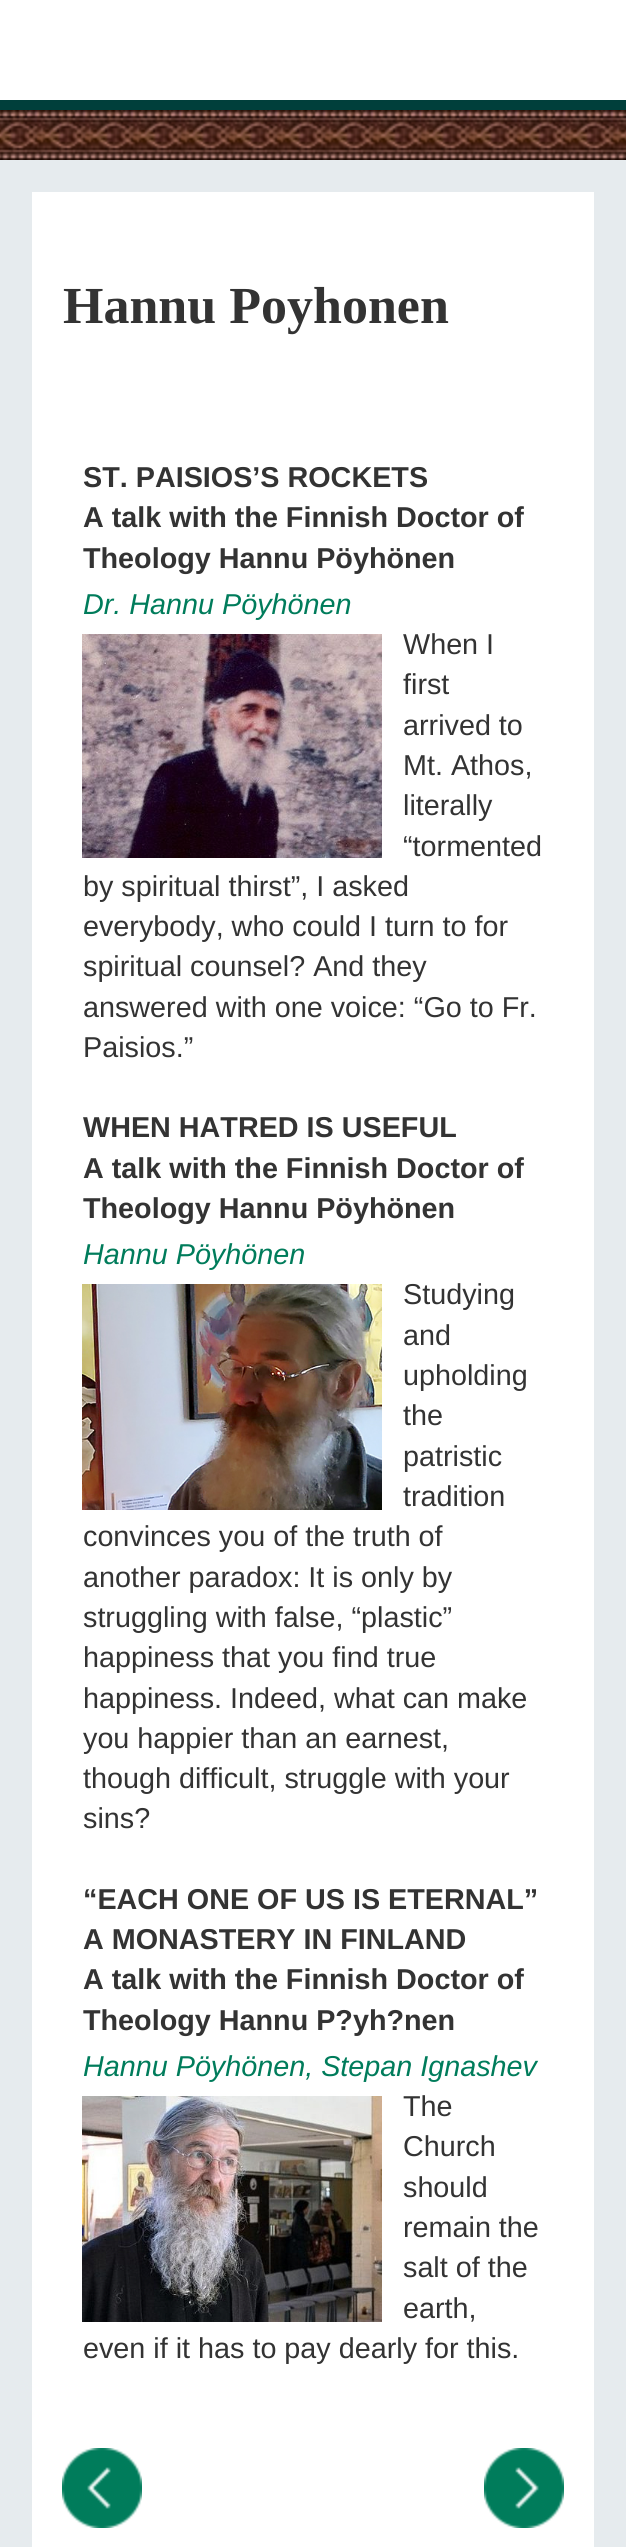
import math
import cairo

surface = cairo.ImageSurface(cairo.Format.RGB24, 626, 2547)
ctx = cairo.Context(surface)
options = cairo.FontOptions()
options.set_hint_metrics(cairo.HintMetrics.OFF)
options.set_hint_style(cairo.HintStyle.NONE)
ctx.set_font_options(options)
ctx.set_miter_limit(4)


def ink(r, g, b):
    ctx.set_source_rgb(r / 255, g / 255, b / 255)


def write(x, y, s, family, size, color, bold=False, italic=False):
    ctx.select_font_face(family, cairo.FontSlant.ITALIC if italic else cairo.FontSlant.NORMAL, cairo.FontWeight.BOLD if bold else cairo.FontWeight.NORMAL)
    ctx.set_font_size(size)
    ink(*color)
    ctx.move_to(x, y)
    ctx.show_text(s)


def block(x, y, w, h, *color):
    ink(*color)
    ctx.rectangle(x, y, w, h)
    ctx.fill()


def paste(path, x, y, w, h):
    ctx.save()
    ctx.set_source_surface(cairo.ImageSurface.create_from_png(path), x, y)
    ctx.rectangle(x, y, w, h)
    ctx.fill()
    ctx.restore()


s1 = dict(family="Liberation Serif", size=52, color=(51, 51, 51), bold=True)
s2 = dict(family="Liberation Sans", size=28.75, color=(51, 51, 51), bold=True)
s3 = dict(family="Liberation Sans", size=28.75, color=(0, 124, 91), italic=True)
s4 = dict(family="Liberation Sans", size=28.75, color=(51, 51, 51))

ink(230, 235, 238)
ctx.paint()
block(0, 0, 626, 100, 255, 255, 255)
block(0, 100, 626, 10, 0, 63, 59)
paste("pic1.png", 0, 110, 626, 50)
block(32, 192, 562, 2355, 255, 255, 255)
write(63, 323, "Hannu Poyhonen", **s1)
write(83, 487, "ST. PAISIOS’S ROCKETS", **s2)
write(83, 527, "A talk with the Finnish Doctor of", **s2)
write(83, 568, "Theology Hannu Pöyhönen", **s2)
write(83, 614, "Dr. Hannu Pöyhönen", **s3)
write(403, 654, "When I", **s4)
write(403, 694, "first", **s4)
write(403, 735, "arrived to", **s4)
write(403, 775, "Mt. Athos,", **s4)
write(403, 815, "literally", **s4)
write(403, 856, "“tormented", **s4)
write(83, 896, "by spiritual thirst”, I asked", **s4)
write(83, 936, "everybody, who could I turn to for", **s4)
write(83, 976, "spiritual counsel? And they", **s4)
write(83, 1017, "answered with one voice: “Go to Fr.", **s4)
write(83, 1057, "Paisios.”", **s4)
paste("pic2.png", 82, 634, 300, 224)
write(83, 1137, "WHEN HATRED IS USEFUL", **s2)
write(83, 1178, "A talk with the Finnish Doctor of", **s2)
write(83, 1218, "Theology Hannu Pöyhönen", **s2)
write(83, 1264, "Hannu Pöyhönen", **s3)
write(403, 1304, "Studying", **s4)
write(403, 1345, "and", **s4)
write(403, 1385, "upholding", **s4)
write(403, 1425, "the", **s4)
write(403, 1466, "patristic", **s4)
write(403, 1506, "tradition", **s4)
write(83, 1546, "convinces you of the truth of", **s4)
write(83, 1587, "another paradox: It is only by", **s4)
write(83, 1627, "struggling with false, “plastic”", **s4)
write(83, 1667, "happiness that you find true", **s4)
write(83, 1708, "happiness. Indeed, what can make", **s4)
write(83, 1748, "you happier than an earnest,", **s4)
write(83, 1788, "though difficult, struggle with your", **s4)
write(83, 1828, "sins?", **s4)
paste("pic3.png", 82, 1284, 300, 226)
write(83, 1909, "“EACH ONE OF US IS ETERNAL”", **s2)
write(83, 1949, "A MONASTERY IN FINLAND", **s2)
write(83, 1989, "A talk with the Finnish Doctor of", **s2)
write(83, 2030, "Theology Hannu P?yh?nen", **s2)
write(83, 2076, "Hannu Pöyhönen, Stepan Ignashev", **s3)
write(403, 2116, "The", **s4)
write(403, 2156, "Church", **s4)
write(403, 2197, "should", **s4)
write(403, 2237, "remain the", **s4)
write(403, 2277, "salt of the", **s4)
write(403, 2318, "earth,", **s4)
write(83, 2358, "even if it has to pay dearly for this.", **s4)
paste("pic4.png", 82, 2096, 300, 226)
paste("pic5.png", 62, 2448, 80, 80)
paste("pic6.png", 484, 2448, 80, 80)
surface.write_to_png("screenshot.png")
